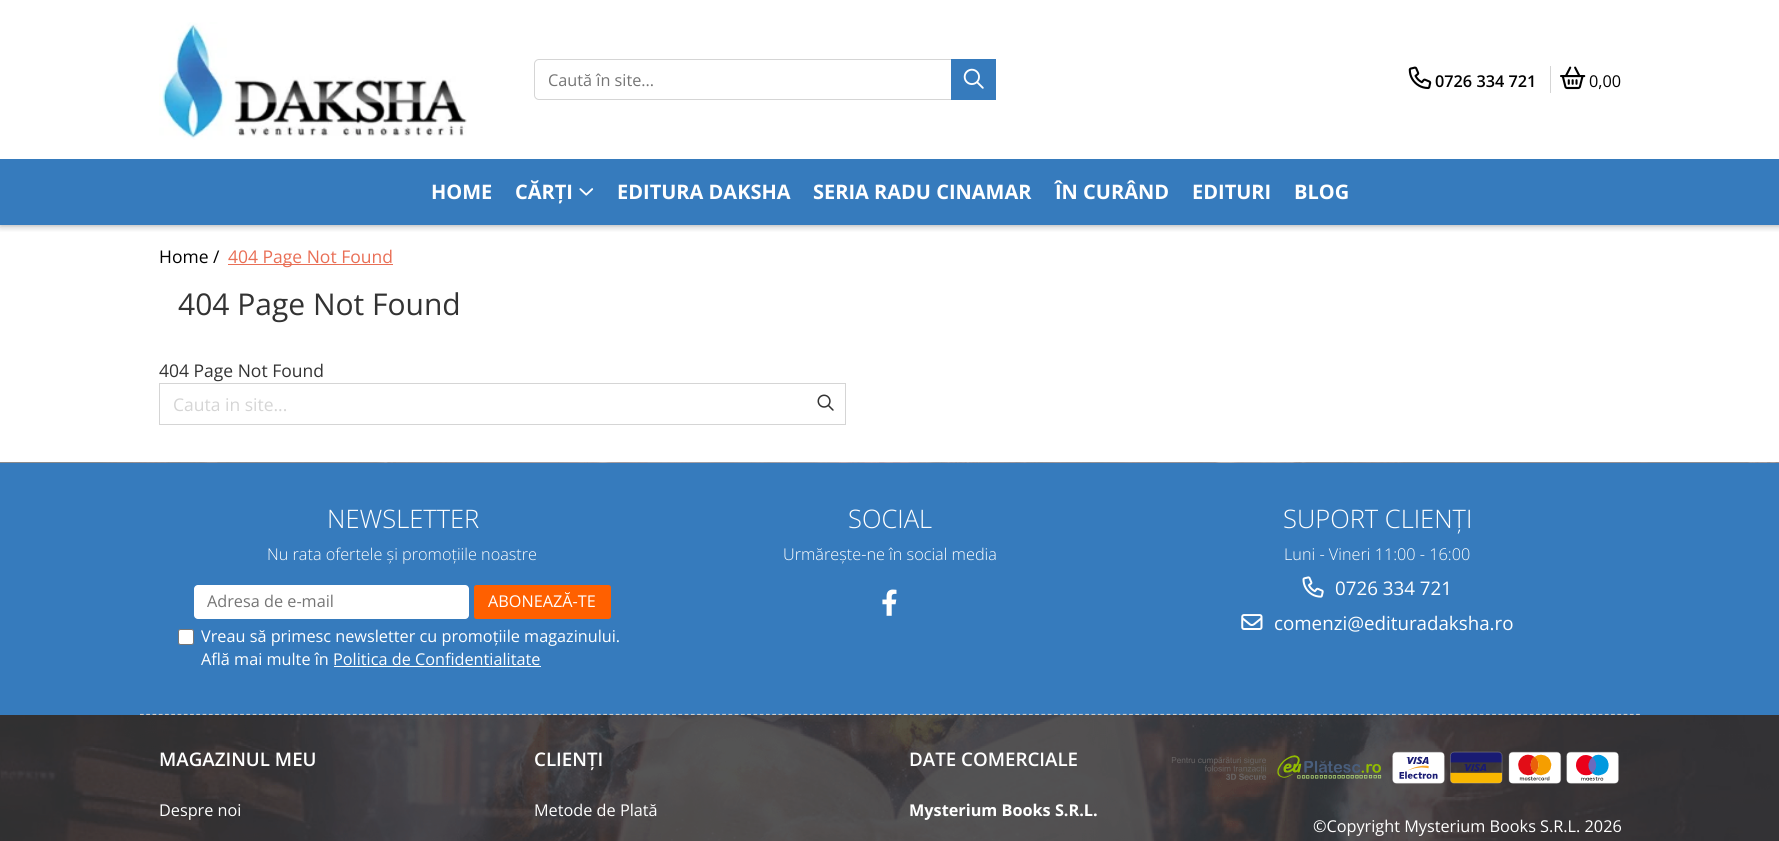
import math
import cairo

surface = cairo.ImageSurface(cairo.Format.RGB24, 1779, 841)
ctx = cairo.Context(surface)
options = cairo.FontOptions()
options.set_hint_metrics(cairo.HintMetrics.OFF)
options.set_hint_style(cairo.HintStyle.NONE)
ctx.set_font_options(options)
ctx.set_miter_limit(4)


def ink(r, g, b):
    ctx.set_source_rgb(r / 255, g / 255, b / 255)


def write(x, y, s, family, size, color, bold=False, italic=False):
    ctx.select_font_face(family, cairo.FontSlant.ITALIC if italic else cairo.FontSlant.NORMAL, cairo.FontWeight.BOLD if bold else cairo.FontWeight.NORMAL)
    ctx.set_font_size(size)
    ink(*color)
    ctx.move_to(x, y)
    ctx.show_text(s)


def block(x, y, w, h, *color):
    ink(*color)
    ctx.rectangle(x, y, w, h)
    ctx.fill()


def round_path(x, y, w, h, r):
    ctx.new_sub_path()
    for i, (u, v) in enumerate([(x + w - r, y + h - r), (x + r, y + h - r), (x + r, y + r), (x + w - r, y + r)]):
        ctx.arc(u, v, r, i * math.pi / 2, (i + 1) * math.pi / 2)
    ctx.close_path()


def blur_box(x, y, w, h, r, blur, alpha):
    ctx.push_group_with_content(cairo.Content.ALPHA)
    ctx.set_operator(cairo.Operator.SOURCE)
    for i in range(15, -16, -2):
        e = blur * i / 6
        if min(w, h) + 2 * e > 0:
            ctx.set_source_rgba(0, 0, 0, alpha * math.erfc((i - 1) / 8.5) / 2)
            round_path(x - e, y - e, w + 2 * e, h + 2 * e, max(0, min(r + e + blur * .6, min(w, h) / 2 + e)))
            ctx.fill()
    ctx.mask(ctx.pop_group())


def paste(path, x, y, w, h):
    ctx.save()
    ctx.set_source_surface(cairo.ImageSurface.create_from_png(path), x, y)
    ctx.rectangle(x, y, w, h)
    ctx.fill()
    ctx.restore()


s1 = dict(family="Open Sans", size=16.25, color=(117, 117, 117))
s2 = dict(family="Open Sans SemiBold", size=16.25, color=(0, 0, 0))
s3 = dict(family="Open Sans", size=16.25, color=(0, 0, 0))
s4 = dict(family="Open Sans", size=20, color=(255, 255, 255), bold=True)
s5 = dict(family="Open Sans", size=17.5, color=(0, 0, 0))
s6 = dict(family="Open Sans", size=17.5, color=(233, 111, 86))
s7 = dict(family="Open Sans", size=30, color=(51, 51, 51))
s8 = dict(family="Open Sans", size=17.5, color=(51, 51, 51))
s9 = dict(family="Open Sans", size=17.5, color=(213, 213, 213))
s10 = dict(family="Open Sans Light", size=25.5, color=(255, 255, 255))
s11 = dict(family="Open Sans Light", size=16.25, color=(255, 255, 255))
s12 = dict(family="Open Sans", size=16.25, color=(255, 255, 255))
s13 = dict(family="Open Sans", size=18.75, color=(255, 255, 255))
s14 = dict(family="Open Sans SemiBold", size=18.75, color=(255, 255, 255))
s15 = dict(family="Open Sans", size=16.25, color=(255, 255, 255), bold=True)

ink(255, 255, 255)
ctx.paint()
ctx.save()
ctx.rectangle(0, 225, 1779, 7)
ctx.clip()
ink(0, 0, 0)
blur_box(0, 0, 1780, 225, 0, 4, 0.4)
ctx.restore()
paste("pic1.png", 159, 22, 308, 118)
round_path(534.5, 59.5, 461, 40, 4.5)
ink(213, 213, 213)
ctx.set_line_width(1)
ctx.stroke()
write(548, 86, "Caută în site...", **s1)
block(951, 59, 45, 41, 54, 123, 189)
paste("pic2.png", 963, 68, 21, 21)
paste("pic3.png", 1408, 66, 24, 24)
write(1435, 87, "0726 334 721", **s2)
block(1550, 66, 1, 27, 213, 213, 213)
paste("pic4.png", 1560, 66, 26, 24)
write(1589, 87, "0,00", **s3)
block(0, 159, 1779, 66, 54, 123, 189)
write(431, 199, "HOME", **s4)
write(515, 199, "CĂRȚI", **s4)
paste("pic5.png", 579, 188, 15, 8)
write(617, 199, "EDITURA DAKSHA", **s4)
write(813, 199, "SERIA RADU CINAMAR", **s4)
write(1055, 199, "ÎN CURÂND", **s4)
write(1192, 199, "EDITURI", **s4)
write(1294, 199, "BLOG", **s4)
write(159, 263, "Home /", **s5)
block(228, 264, 165, 1, 233, 111, 86)
write(228, 263, "404 Page Not Found", **s6)
write(178, 315, "404 Page Not Found", **s7)
write(159, 377, "404 Page Not Found", **s8)
ctx.rectangle(159.5, 383.5, 686, 41)
ink(213, 213, 213)
ctx.stroke()
write(173, 411, "Cauta in site...", **s9)
paste("pic6.png", 817, 394, 17, 17)
paste("pic7.png", 0, 462, 1779, 379)
block(0, 463, 1779, 252, 54, 123, 189)
ctx.save()
ctx.rectangle(0, 463, 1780, 252)
ctx.clip()
ctx.new_path()
ctx.move_to(140, 714.5)
ctx.line_to(1640, 714.5)
ink(204, 204, 204)
ctx.set_line_width(1.2)
ctx.set_dash([3.75, 2.51])
ctx.stroke()
ctx.restore()
write(327, 528, "NEWSLETTER", **s10)
write(267, 560, "Nu rata ofertele și promoțiile noastre", **s11)
round_path(194, 585, 275, 34, 4)
ctx.fill()
write(207, 607, "Adresa de e-mail", **s1)
ink(255, 96, 0)
round_path(474, 585, 137, 34, 2.5)
ctx.fill()
write(488, 607, "ABONEAZĂ-TE", **s12)
round_path(178.5, 629.5, 15, 15, 2)
ctx.fill_preserve()
ink(118, 118, 118)
ctx.stroke()
write(201, 642, "Vreau să primesc newsletter cu promoțiile magazinului.", **s12)
write(201, 665, "Află mai multe în Politica de Confidentialitate", **s12)
block(334, 666, 207, 1, 255, 255, 255)
write(848, 528, "SOCIAL", **s10)
write(783, 560, "Urmărește-ne în social media", **s11)
paste("pic8.png", 882, 589, 15, 27)
write(1283, 528, "SUPORT CLIENȚI", **s10)
write(1284, 560, "Luni - Vineri 11:00 - 16:00", **s11)
paste("pic9.png", 1302, 576, 22, 22)
write(1335, 595, "0726 334 721", **s13)
paste("pic10.png", 1241, 614, 22, 16)
write(1274, 630, "comenzi@edituradaksha.ro", **s13)
ctx.set_source_rgba(0.243, 0.243, 0.243, 0.65)
ctx.rectangle(0, 715, 1779, 126)
ctx.fill()
write(159, 766, "MAGAZINUL MEU", **s14)
write(159, 816, "Despre noi", **s12)
write(534, 766, "CLIENȚI", **s14)
write(534, 816, "Metode de Plată", **s12)
write(909, 766, "DATE COMERCIALE", **s14)
write(909, 816, "Mysterium Books S.R.L.", **s15)
paste("pic11.png", 1171, 751, 448, 33)
write(1313, 832, "©Copyright Mysterium Books S.R.L. 2026", **s12)
surface.write_to_png("screenshot.png")
